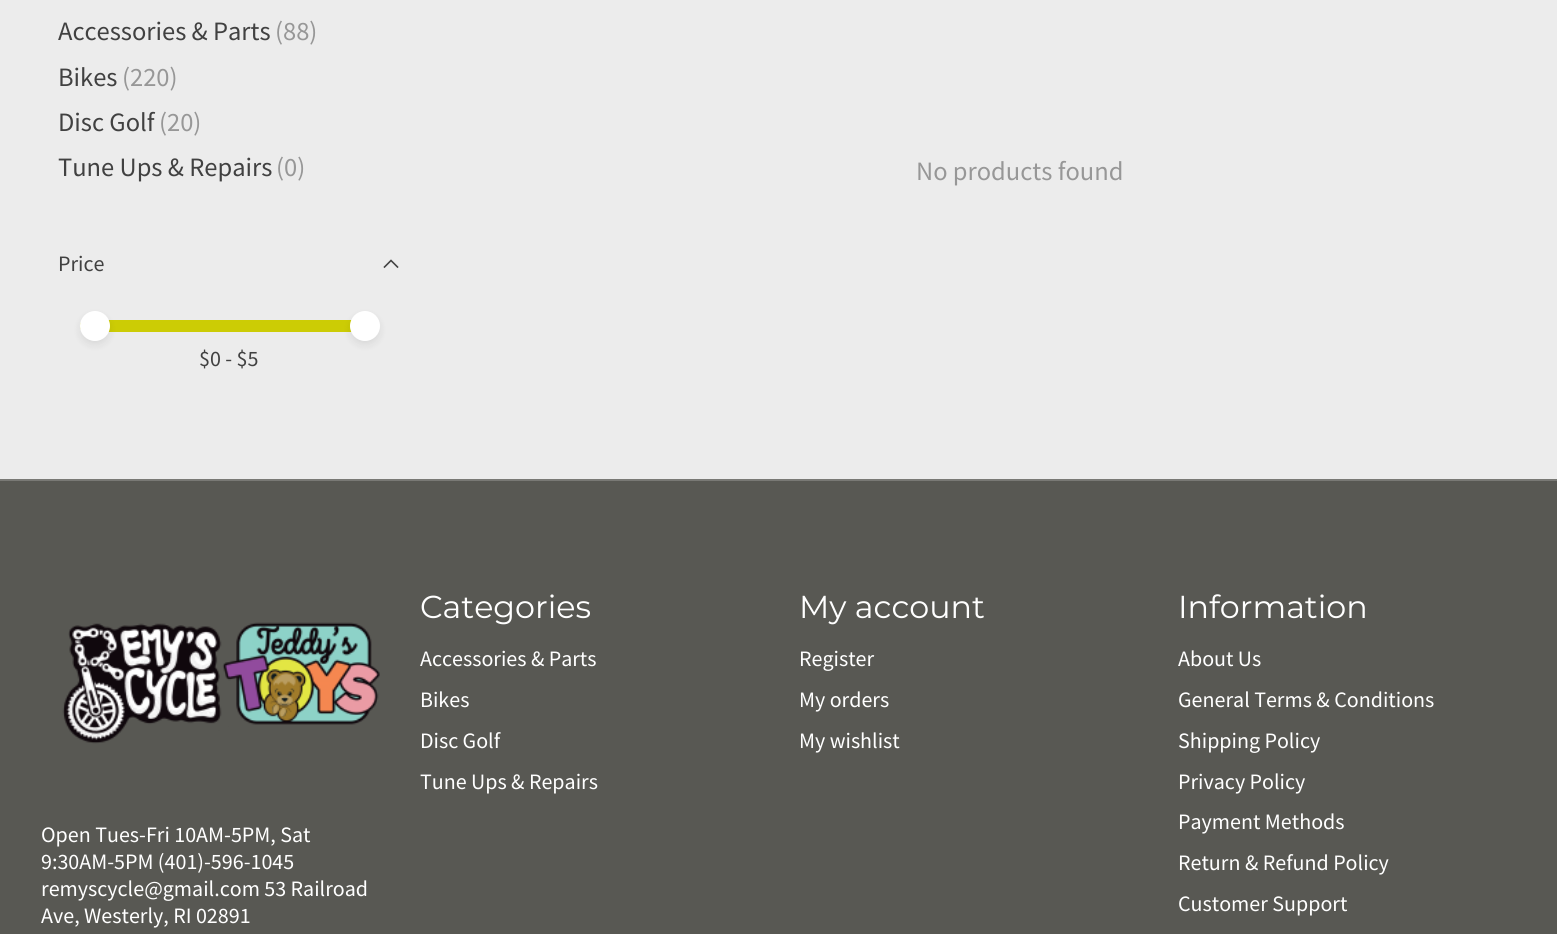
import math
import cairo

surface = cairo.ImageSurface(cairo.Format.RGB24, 1557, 934)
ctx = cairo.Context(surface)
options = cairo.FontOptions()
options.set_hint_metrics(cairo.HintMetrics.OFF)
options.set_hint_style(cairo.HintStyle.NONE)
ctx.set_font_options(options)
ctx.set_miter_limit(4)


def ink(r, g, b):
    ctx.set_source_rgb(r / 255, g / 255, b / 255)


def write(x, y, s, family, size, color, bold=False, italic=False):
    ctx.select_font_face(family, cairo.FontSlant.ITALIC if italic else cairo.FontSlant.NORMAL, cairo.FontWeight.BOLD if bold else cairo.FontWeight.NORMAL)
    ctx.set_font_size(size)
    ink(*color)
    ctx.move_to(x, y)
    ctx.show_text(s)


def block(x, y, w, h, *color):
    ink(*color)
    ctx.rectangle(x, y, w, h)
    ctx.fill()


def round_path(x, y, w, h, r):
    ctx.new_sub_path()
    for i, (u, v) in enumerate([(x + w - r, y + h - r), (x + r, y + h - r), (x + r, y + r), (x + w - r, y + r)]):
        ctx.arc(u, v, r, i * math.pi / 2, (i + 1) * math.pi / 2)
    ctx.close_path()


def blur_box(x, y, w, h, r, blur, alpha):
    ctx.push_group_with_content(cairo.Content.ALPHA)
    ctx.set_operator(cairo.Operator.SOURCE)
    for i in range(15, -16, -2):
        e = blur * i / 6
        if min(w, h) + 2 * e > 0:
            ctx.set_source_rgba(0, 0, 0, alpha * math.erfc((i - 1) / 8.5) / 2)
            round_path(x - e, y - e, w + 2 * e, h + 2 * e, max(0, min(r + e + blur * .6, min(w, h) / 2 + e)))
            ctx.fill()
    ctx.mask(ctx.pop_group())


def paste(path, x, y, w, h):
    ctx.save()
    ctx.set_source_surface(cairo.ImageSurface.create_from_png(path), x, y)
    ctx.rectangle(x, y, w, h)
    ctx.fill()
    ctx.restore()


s1 = dict(family="Source Sans Pro", size=26.5, color=(65, 65, 65))
s2 = dict(family="Source Sans Pro", size=26.5, color=(151, 151, 151))
s3 = dict(family="Source Sans Pro", size=22, color=(65, 65, 65))
s4 = dict(family="Montserrat", size=31.75, color=(255, 255, 255))
s5 = dict(family="Source Sans Pro", size=22, color=(255, 255, 255))

ink(236, 236, 236)
ctx.paint()
write(58, 40, "Accessories & Parts", **s1)
write(275, 40, "(88)", **s2)
write(58, 86, "Bikes", **s1)
write(122, 86, "(220)", **s2)
write(58, 131, "Disc Golf", **s1)
write(159, 131, "(20)", **s2)
write(58, 176, "Tune Ups & Repairs", **s1)
write(276, 176, "(0)", **s2)
write(58, 271, "Price", **s3)
ctx.new_path()
ctx.move_to(384.5, 267)
ctx.line_to(391, 260.5)
ctx.move_to(397.5, 267)
ctx.line_to(391, 260.5)
ctx.set_line_width(1.6)
ctx.set_line_cap(cairo.LineCap.SQUARE)
ctx.stroke()
ink(204, 204, 5)
ctx.new_path()
ctx.move_to(86, 320)
ctx.line_to(365, 320)
ctx.line_to(365, 332)
ctx.line_to(86, 332)
ctx.curve_to(82.5, 332, 80, 329.5, 80, 326)
ctx.curve_to(80, 322.5, 82.5, 320, 86, 320)
ctx.close_path()
ctx.fill()
ink(0, 0, 0)
blur_box(80, 315, 30, 30, 15, 4, 0.08)
ink(255, 255, 255)
ctx.arc(95, 326, 15, 0, 2 * math.pi)
ctx.fill()
write(199, 366, "$0 - $5", **s3)
ink(0, 0, 0)
blur_box(350, 315, 30, 30, 15, 4, 0.08)
ink(255, 255, 255)
ctx.arc(365, 326, 15, 0, 2 * math.pi)
ctx.fill()
write(916, 180, "No products found", **s2)
block(0, 481, 1557, 453, 88, 88, 83)
block(0, 479, 1557, 2, 121, 121, 117)
write(420, 618, "Categories", **s4)
write(420, 666, "Accessories & Parts", **s5)
write(420, 707, "Bikes", **s5)
write(420, 748, "Disc Golf", **s5)
write(420, 789, "Tune Ups & Repairs", **s5)
write(799, 618, "My account", **s4)
write(799, 666, "Register", **s5)
write(799, 707, "My orders", **s5)
write(799, 748, "My wishlist", **s5)
write(1178, 618, "Information", **s4)
write(1178, 666, "About Us", **s5)
write(1178, 707, "General Terms & Conditions", **s5)
write(1178, 748, "Shipping Policy", **s5)
write(1178, 789, "Privacy Policy", **s5)
write(1178, 829, "Payment Methods", **s5)
write(1178, 870, "Return & Refund Policy", **s5)
write(1178, 911, "Customer Support", **s5)
paste("pic1.png", 62, 622, 318, 122)
write(41, 842, "Open Tues-Fri 10AM-5PM, Sat", **s5)
write(41, 869, "9:30AM-5PM (401)-596-1045", **s5)
write(41, 896, "remyscycle@gmail.com 53 Railroad", **s5)
write(41, 923, "Ave, Westerly, RI 02891", **s5)
surface.write_to_png("screenshot.png")
